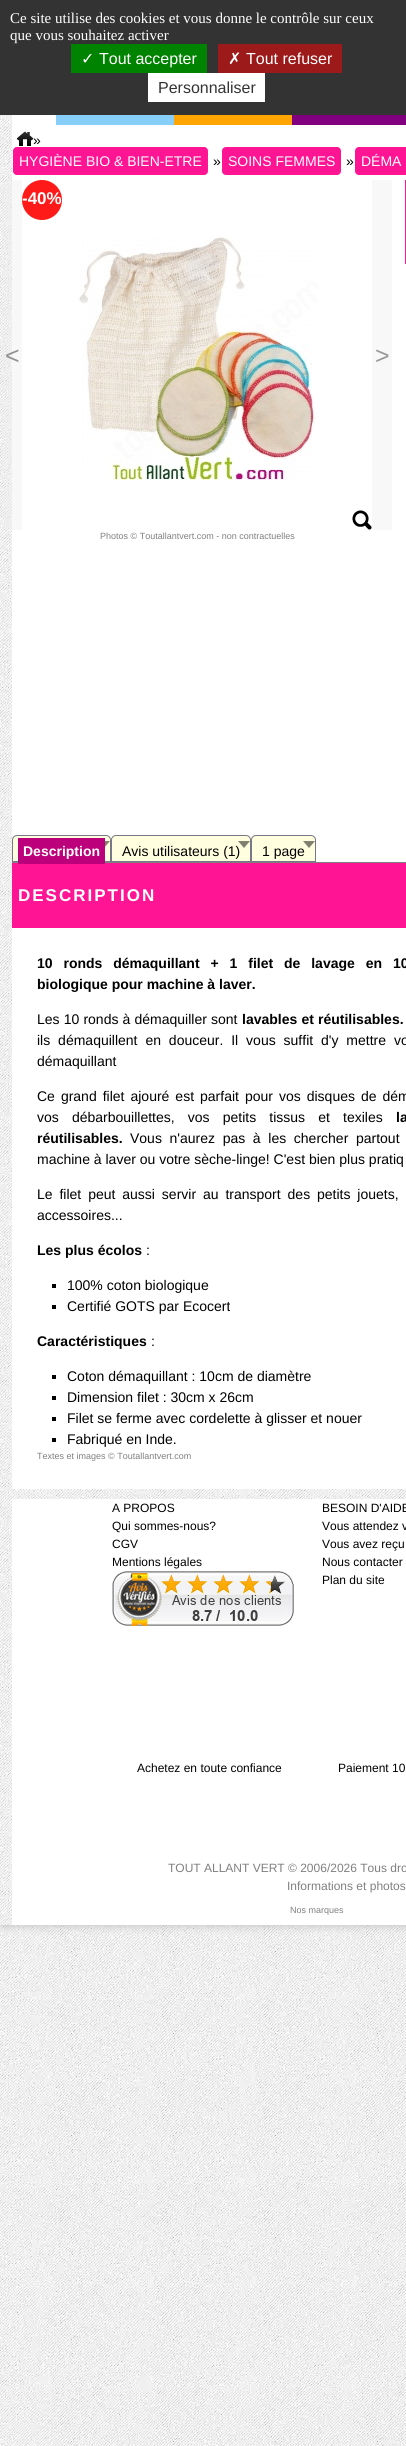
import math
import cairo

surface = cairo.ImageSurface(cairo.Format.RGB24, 406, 2446)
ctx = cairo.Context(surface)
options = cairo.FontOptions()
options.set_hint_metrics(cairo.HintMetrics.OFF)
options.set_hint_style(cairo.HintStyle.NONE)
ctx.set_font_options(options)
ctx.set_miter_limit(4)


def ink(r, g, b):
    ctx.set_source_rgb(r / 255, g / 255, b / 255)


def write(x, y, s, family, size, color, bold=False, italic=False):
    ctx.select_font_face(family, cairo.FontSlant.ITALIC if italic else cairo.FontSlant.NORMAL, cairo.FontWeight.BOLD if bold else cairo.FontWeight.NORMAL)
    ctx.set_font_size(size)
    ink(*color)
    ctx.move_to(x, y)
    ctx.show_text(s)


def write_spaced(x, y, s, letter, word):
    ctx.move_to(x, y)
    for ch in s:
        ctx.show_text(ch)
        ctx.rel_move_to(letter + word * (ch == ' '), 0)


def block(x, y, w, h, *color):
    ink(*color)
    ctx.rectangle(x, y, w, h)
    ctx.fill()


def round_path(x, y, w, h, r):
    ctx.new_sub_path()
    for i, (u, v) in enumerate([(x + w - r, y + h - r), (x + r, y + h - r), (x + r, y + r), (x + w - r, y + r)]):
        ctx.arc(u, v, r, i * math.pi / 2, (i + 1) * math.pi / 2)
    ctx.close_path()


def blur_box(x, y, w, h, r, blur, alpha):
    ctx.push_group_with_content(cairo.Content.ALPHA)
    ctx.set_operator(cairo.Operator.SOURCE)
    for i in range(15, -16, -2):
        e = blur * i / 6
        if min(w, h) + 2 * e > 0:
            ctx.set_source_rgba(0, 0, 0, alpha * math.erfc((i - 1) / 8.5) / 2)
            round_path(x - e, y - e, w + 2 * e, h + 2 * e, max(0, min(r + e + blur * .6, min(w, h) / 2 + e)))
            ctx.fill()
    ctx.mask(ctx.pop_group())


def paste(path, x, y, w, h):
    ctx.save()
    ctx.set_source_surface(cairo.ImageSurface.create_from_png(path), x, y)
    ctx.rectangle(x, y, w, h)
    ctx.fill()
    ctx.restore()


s1 = dict(family="Liberation Serif", size=15, color=(255, 255, 255))
s2 = dict(family="DejaVu Sans", size=16, color=(255, 255, 255))
s3 = dict(family="Liberation Sans", size=16, color=(255, 255, 255))
s4 = dict(family="Liberation Sans", size=16, color=(51, 51, 51))
s5 = dict(family="Liberation Sans", size=14, color=(0, 0, 0))
s6 = dict(family="Liberation Sans", size=14, color=(255, 255, 255))
s7 = dict(family="Liberation Sans", size=17, color=(255, 255, 255), bold=True)
s8 = dict(family="Liberation Sans", size=25, color=(146, 146, 146))
s9 = dict(family="Liberation Sans", size=25, color=(153, 153, 153))
s10 = dict(family="Liberation Sans", size=9, color=(128, 128, 128))
s11 = dict(family="Liberation Sans", size=14, color=(255, 255, 255), bold=True)
s12 = dict(family="Liberation Sans", size=14, color=(0, 0, 0), bold=True)
s13 = dict(family="Liberation Sans", size=12, color=(0, 0, 0))
s14 = dict(family="Liberation Sans", size=12, color=(128, 128, 128))

ink(255, 255, 255)
ctx.paint()
paste("pic1.png", 0, 115, 406, 2331)
ctx.save()
ctx.rectangle(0, 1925, 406, 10)
ctx.clip()
ink(187, 187, 187)
blur_box(1, 0, 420, 1925, 0, 5, 1)
ctx.restore()
block(12, 115, 394, 1374, 255, 255, 255)
block(57, 115, 116, 9, 135, 206, 250)
ctx.rectangle(56.5, 85.5, 117, 39)
ctx.set_line_width(1)
ctx.stroke()
block(175, 115, 116, 9, 255, 165, 0)
ctx.rectangle(174.5, 85.5, 117, 39)
ctx.stroke()
block(293, 115, 113, 9, 128, 0, 128)
ctx.rectangle(292.5, 85.5, 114, 39)
ctx.stroke()
block(0, 0, 406, 115, 51, 51, 51)
write(10, 23, "Ce site utilise des cookies et vous donne le contrôle sur ceux", **s1)
write(10, 40, "que vous souhaitez activer", **s1)
block(71, 44, 136, 29, 0, 131, 0)
write(81, 64, "✓", **s2)
write(99, 64, "Tout accepter", **s3)
block(218, 44, 124, 29, 156, 26, 26)
write(228, 64, "✗", **s2)
write(246, 64, "Tout refuser", **s3)
block(148, 73, 117, 29, 255, 255, 255)
write(158, 93, "Personnaliser", **s4)
paste("pic2.png", 17, 131, 16, 15)
write(33, 145, "»", **s5)
ink(255, 20, 147)
round_path(12.5, 146.5, 196, 29, 4.5)
ctx.fill_preserve()
ink(255, 255, 255)
ctx.stroke()
write(19, 166, "HYGIÈNE BIO & BIEN-ETRE", **s6)
write(213, 166, "»", **s5)
ink(255, 20, 147)
round_path(221.5, 146.5, 120, 29, 4.5)
ctx.fill_preserve()
ink(255, 255, 255)
ctx.stroke()
write(228, 166, "SOINS FEMMES", **s6)
write(346, 166, "»", **s5)
ink(255, 20, 147)
round_path(354.5, 146.5, 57, 29, 4.5)
ctx.fill_preserve()
ink(255, 255, 255)
ctx.stroke()
write(361, 166, "DÉMA", **s6)
ink(255, 26, 26)
ctx.new_path()
ctx.arc(42, 200, 20, 0, 2 * math.pi)
ctx.fill()
write(22, 204, "-40%", **s7)
paste("pic3.png", 79, 236, 239, 244)
ctx.set_source_rgba(0.933, 0.933, 0.933, 0.4)
ctx.rectangle(2, 180, 20, 350)
ctx.fill()
write(5, 364, "<", **s8)
block(372, 180, 20, 350, 248, 248, 248)
write(375, 364, ">", **s9)
paste("pic4.png", 352, 510, 20, 20)
write(100, 539, "Photos © Toutallantvert.com - non contractuelles", **s10)
ctx.rectangle(406, 181, 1, 82)
ink(255, 20, 147)
ctx.set_line_width(2)
ctx.stroke()
block(12, 862, 394, 1, 128, 128, 128)
ink(255, 255, 224)
ctx.new_path()
ctx.move_to(17, 835)
ctx.line_to(106, 835)
ctx.curve_to(109, 835, 111, 837, 111, 840)
ctx.line_to(111, 862)
ctx.line_to(12, 862)
ctx.line_to(12, 840)
ctx.curve_to(12, 837, 14, 835, 17, 835)
ctx.close_path()
ctx.fill()
paste("pic5.png", 105, 841, 5, 6)
ctx.new_path()
ctx.move_to(17, 835.5)
ctx.line_to(106, 835.5)
ctx.curve_to(108.5, 835.5, 110.5, 837.5, 110.5, 840)
ctx.line_to(110.5, 861.5)
ctx.line_to(12.5, 861.5)
ctx.line_to(12.5, 840)
ctx.curve_to(12.5, 837.5, 14.5, 835.5, 17, 835.5)
ctx.close_path()
ink(119, 119, 136)
ctx.set_line_width(1)
ctx.stroke()
block(12, 863, 394, 65, 255, 20, 147)
block(18, 838, 87, 26, 188, 0, 123)
write(23, 856, "Description", **s11)
ink(255, 255, 224)
ctx.new_path()
ctx.move_to(116, 835)
ctx.line_to(246, 835)
ctx.curve_to(249, 835, 251, 837, 251, 840)
ctx.line_to(251, 862)
ctx.line_to(111, 862)
ctx.line_to(111, 840)
ctx.curve_to(111, 837, 113, 835, 116, 835)
ctx.close_path()
ctx.fill()
paste("pic6.png", 238, 841, 12, 7)
ctx.new_path()
ctx.move_to(116, 835.5)
ctx.line_to(246, 835.5)
ctx.curve_to(248.5, 835.5, 250.5, 837.5, 250.5, 840)
ctx.line_to(250.5, 861.5)
ctx.line_to(111.5, 861.5)
ctx.line_to(111.5, 840)
ctx.curve_to(111.5, 837.5, 113.5, 835.5, 116, 835.5)
ctx.close_path()
ink(119, 119, 136)
ctx.stroke()
write(122, 856, "Avis utilisateurs (1)", **s5)
ink(255, 255, 224)
ctx.new_path()
ctx.move_to(256, 835)
ctx.line_to(311, 835)
ctx.curve_to(314, 835, 316, 837, 316, 840)
ctx.line_to(316, 862)
ctx.line_to(251, 862)
ctx.line_to(251, 840)
ctx.curve_to(251, 837, 253, 835, 256, 835)
ctx.close_path()
ctx.fill()
paste("pic6.png", 303, 841, 12, 7)
ctx.new_path()
ctx.move_to(256, 835.5)
ctx.line_to(311, 835.5)
ctx.curve_to(313.5, 835.5, 315.5, 837.5, 315.5, 840)
ctx.line_to(315.5, 861.5)
ctx.line_to(251.5, 861.5)
ctx.line_to(251.5, 840)
ctx.curve_to(251.5, 837.5, 253.5, 835.5, 256, 835.5)
ctx.close_path()
ink(119, 119, 136)
ctx.stroke()
write(262, 856, "1 page", **s5)
ctx.select_font_face("Liberation Sans", cairo.FontSlant.NORMAL, cairo.FontWeight.BOLD)
ctx.set_font_size(17)
ink(255, 255, 255)
write_spaced(18, 901, "DESCRIPTION", 2, 0)
ctx.set_font_size(14)
ink(0, 0, 0)
write_spaced(37, 968, "10 ronds démaquillant + 1 filet de lavage en 10", 0, 7)
write(37, 989, "biologique pour machine à laver.", **s12)
ctx.select_font_face("Liberation Sans")
write_spaced(37, 1024, "Les 10 ronds à démaquiller sont", 0, 0.25)
ctx.select_font_face("Liberation Sans", cairo.FontSlant.NORMAL, cairo.FontWeight.BOLD)
write_spaced(242, 1024, "lavables et réutilisables.", 0, 0.25)
ctx.select_font_face("Liberation Sans")
write_spaced(37, 1045, "ils démaquillent en douceur. Il vous suffit d'y mettre vo", 0, 4)
write(37, 1066, "démaquillant", **s5)
write_spaced(37, 1101, "Ce grand filet ajouré est parfait pour vos disques de dém", 0, 2.1)
write_spaced(37, 1122, "vos débarbouillettes, vos petits tissus et texiles", 0, 9.25)
ctx.select_font_face("Liberation Sans", cairo.FontSlant.NORMAL, cairo.FontWeight.BOLD)
write_spaced(396, 1122, "la", 0, 9.25)
write(37, 1143, "réutilisables.", **s12)
ctx.select_font_face("Liberation Sans")
write_spaced(130, 1143, "Vous n'aurez pas à les chercher partout", 0, 3.75)
write(37, 1164, "machine à laver ou votre sèche-linge! C'est bien plus pratiq", **s5)
write_spaced(37, 1199, "Le filet peut aussi servir au transport des petits jouets,", 0, 3)
write(37, 1220, "accessoires...", **s5)
write(37, 1255, "Les plus écolos", **s12)
write(146, 1255, ":", **s5)
block(52, 1284, 4, 4, 0, 0, 0)
write(67, 1290, "100% coton biologique", **s5)
block(52, 1305, 4, 4, 0, 0, 0)
write(67, 1311, "Certifié GOTS par Ecocert", **s5)
write(37, 1346, "Caractéristiques", **s12)
write(151, 1346, ":", **s5)
block(52, 1375, 4, 4, 0, 0, 0)
write(67, 1381, "Coton démaquillant : 10cm de diamètre", **s5)
block(52, 1396, 4, 4, 0, 0, 0)
write(67, 1402, "Dimension filet : 30cm x 26cm", **s5)
block(52, 1417, 4, 4, 0, 0, 0)
write(67, 1423, "Filet se ferme avec cordelette à glisser et nouer", **s5)
block(52, 1438, 4, 4, 0, 0, 0)
write(67, 1444, "Fabriqué en Inde.", **s5)
write(37, 1459, "Textes et images © Toutallantvert.com", **s10)
block(12, 1499, 394, 426, 255, 255, 255)
write(112, 1512, "A PROPOS", **s13)
write(112, 1530, "Qui sommes-nous?", **s13)
write(112, 1548, "CGV", **s13)
write(112, 1566, "Mentions légales", **s13)
paste("pic7.png", 112, 1571, 182, 55)
write(322, 1512, "BESOIN D'AIDE", **s13)
write(322, 1530, "Vous attendez v", **s13)
write(322, 1548, "Vous avez reçu", **s13)
write(322, 1566, "Nous contacter", **s13)
write(322, 1584, "Plan du site", **s13)
write(137, 1772, "Achetez en toute confiance", **s13)
write(338, 1772, "Paiement 10", **s13)
write(168, 1872, "TOUT ALLANT VERT © 2006/2026 Tous dro", **s14)
write(287, 1890, "Informations et photos", **s14)
write(290, 1913, "Nos marques", **s10)
surface.write_to_png("screenshot.png")
